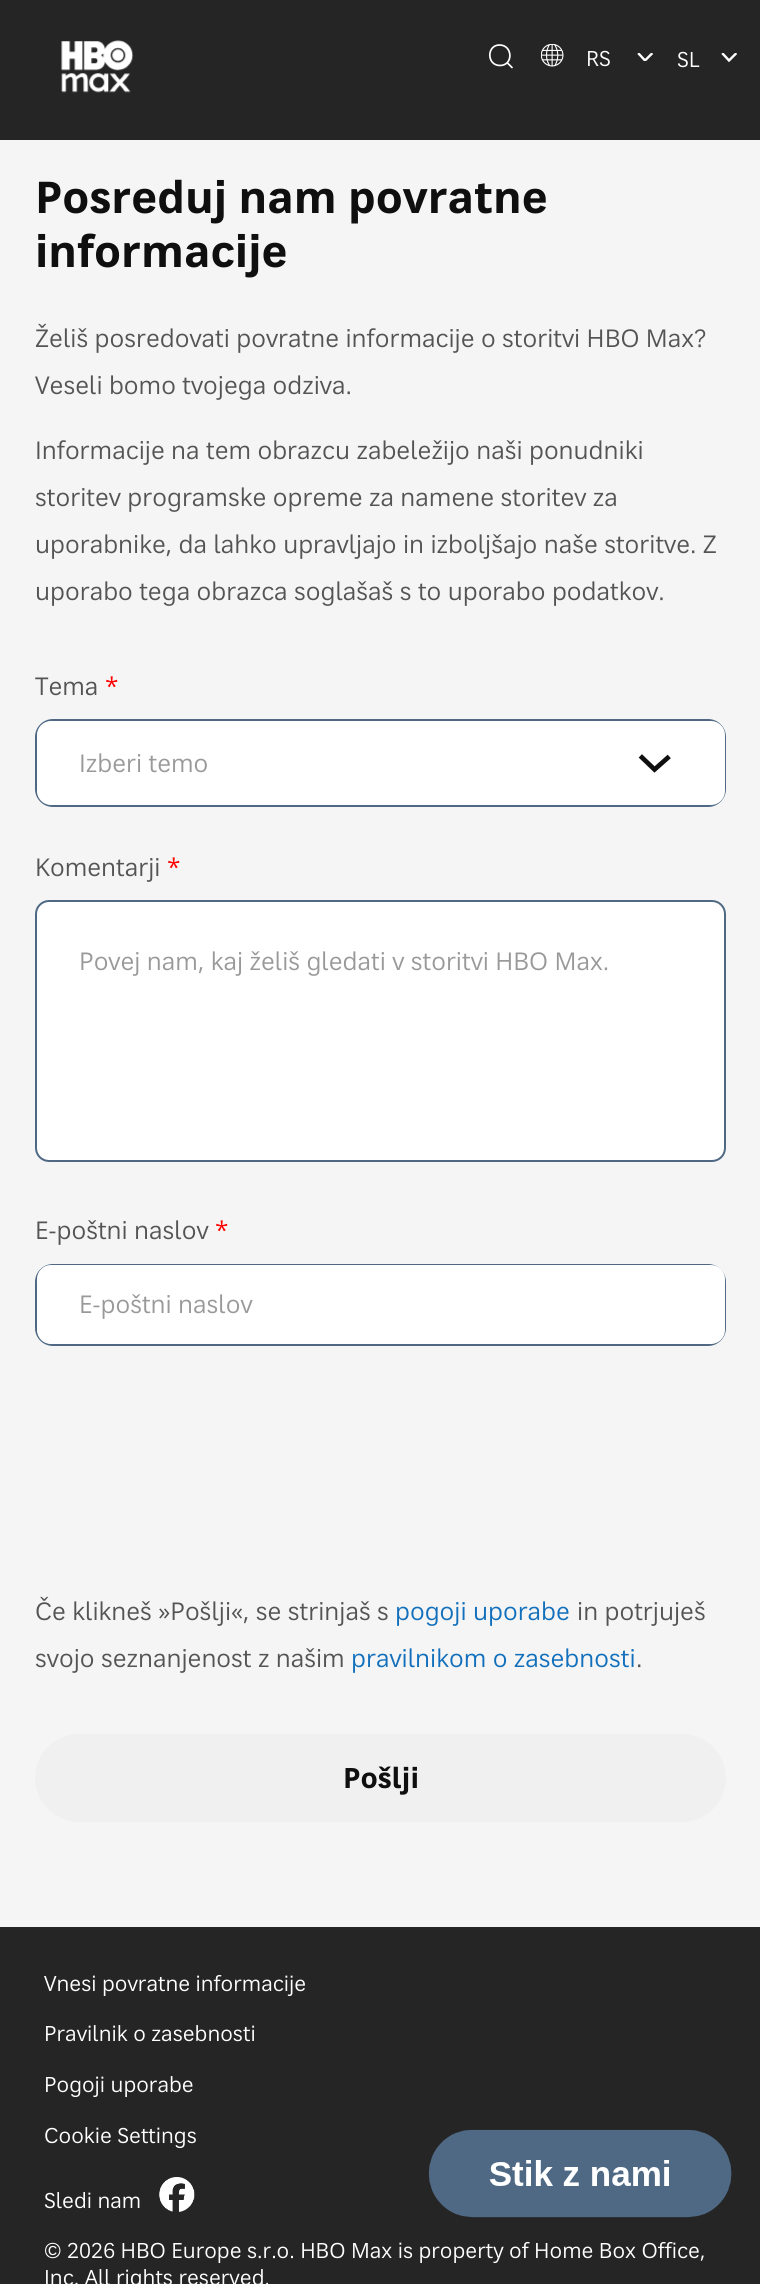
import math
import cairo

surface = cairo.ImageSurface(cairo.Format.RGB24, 760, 2284)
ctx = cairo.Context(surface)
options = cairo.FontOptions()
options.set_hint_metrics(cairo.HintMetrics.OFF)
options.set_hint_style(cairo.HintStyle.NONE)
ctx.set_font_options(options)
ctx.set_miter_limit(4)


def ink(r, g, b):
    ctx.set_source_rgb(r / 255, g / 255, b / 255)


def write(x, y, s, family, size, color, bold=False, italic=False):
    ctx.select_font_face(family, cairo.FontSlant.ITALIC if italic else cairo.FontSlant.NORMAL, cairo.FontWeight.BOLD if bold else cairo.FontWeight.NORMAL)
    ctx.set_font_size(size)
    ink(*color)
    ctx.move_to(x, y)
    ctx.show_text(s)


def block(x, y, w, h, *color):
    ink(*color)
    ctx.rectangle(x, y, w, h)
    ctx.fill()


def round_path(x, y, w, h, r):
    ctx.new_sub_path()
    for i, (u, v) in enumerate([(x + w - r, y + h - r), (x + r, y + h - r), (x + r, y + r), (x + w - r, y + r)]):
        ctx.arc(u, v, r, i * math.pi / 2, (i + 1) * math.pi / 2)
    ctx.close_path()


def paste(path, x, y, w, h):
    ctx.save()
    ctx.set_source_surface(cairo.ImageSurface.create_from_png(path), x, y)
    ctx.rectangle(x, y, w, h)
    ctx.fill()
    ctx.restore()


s1 = dict(family="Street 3", size=21, color=(255, 255, 255))
s2 = dict(family="Street 3", size=43.75, color=(15, 15, 15), bold=True)
s3 = dict(family="Street 3", size=24.5, color=(84, 84, 84))
s4 = dict(family="Street 3", size=24.5, color=(255, 0, 0))
s5 = dict(family="Street 3", size=24.5, color=(153, 153, 153))
s6 = dict(family="Street 3", size=24.5, color=(17, 111, 187))
s7 = dict(family="Street 3", size=28, color=(15, 15, 15), bold=True)

ink(245, 245, 245)
ctx.paint()
block(0, 0, 760, 140, 37, 37, 37)
paste("pic1.png", 61, 40, 73, 53)
ctx.new_path()
ctx.move_to(512, 67.5)
ctx.line_to(507.5, 63)
ctx.move_to(499.5, 45)
ctx.curve_to(486.5, 45, 486.5, 65.5, 500, 65.5)
ctx.curve_to(513.5, 65.5, 513, 45, 499.5, 45)
ink(255, 255, 255)
ctx.set_line_width(1.7)
ctx.set_line_cap(cairo.LineCap.ROUND)
ctx.stroke()
paste("pic2.png", 541, 44, 23, 23)
ctx.save()
ctx.rectangle(637, 53, 18, 8)
ctx.clip()
ctx.new_path()
ctx.move_to(639, 54)
ctx.line_to(645, 60.5)
ctx.line_to(651.5, 54)
ctx.set_line_width(2.4)
ctx.set_line_cap(cairo.LineCap.SQUARE)
ctx.stroke()
ctx.restore()
write(586, 66, "RS", **s1)
ctx.save()
ctx.rectangle(721, 53, 18, 10)
ctx.clip()
ctx.new_path()
ctx.move_to(723, 54)
ctx.line_to(729, 60.5)
ctx.line_to(735.5, 54)
ctx.set_line_width(2.4)
ctx.set_line_cap(cairo.LineCap.SQUARE)
ctx.stroke()
ctx.restore()
write(677, 67, "SL", **s1)
write(35, 213, "Posreduj nam povratne", **s2)
write(35, 267, "informacije", **s2)
write(35, 347, "Želiš posredovati povratne informacije o storitvi HBO Max?", **s3)
write(35, 394, "Veseli bomo tvojega odziva.", **s3)
write(35, 459, "Informacije na tem obrazcu zabeležijo naši ponudniki", **s3)
write(35, 506, "storitev programske opreme za namene storitev za", **s3)
write(35, 553, "uporabnike, da lahko upravljajo in izboljšajo naše storitve. Z", **s3)
write(35, 600, "uporabo tega obrazca soglašaš s to uporabo podatkov.", **s3)
write(35, 695, "Tema", **s3)
write(105, 695, "*", **s4)
round_path(36, 720, 689, 86, 17)
ink(79, 105, 132)
ctx.set_line_width(2)
ctx.set_line_cap(cairo.LineCap.BUTT)
ctx.stroke()
ink(255, 255, 255)
round_path(37, 721, 688, 84, 14)
ctx.fill()
ctx.new_path()
ctx.move_to(642, 757.5)
ctx.line_to(654.5, 769.5)
ctx.line_to(667.5, 758)
ink(15, 15, 15)
ctx.set_line_width(4.7)
ctx.set_line_cap(cairo.LineCap.SQUARE)
ctx.stroke()
write(79, 772, "Izberi temo", **s5)
write(35, 876, "Komentarji", **s3)
write(167, 876, "*", **s4)
ink(255, 255, 255)
round_path(36, 901, 689, 260, 13)
ctx.fill_preserve()
ink(79, 105, 132)
ctx.set_line_width(2)
ctx.set_line_cap(cairo.LineCap.BUTT)
ctx.stroke()
write(79, 970, "Povej nam, kaj želiš gledati v storitvi HBO Max.", **s5)
write(35, 1239, "E-poštni naslov", **s3)
write(215, 1239, "*", **s4)
round_path(36, 1265, 689, 80, 17)
ink(79, 105, 132)
ctx.stroke()
ink(255, 255, 255)
round_path(37, 1265, 688, 79, 14)
ctx.fill()
write(79, 1313, "E-poštni naslov", **s5)
write(35, 1620, "Če klikneš »Pošlji«, se strinjaš s", **s3)
write(395, 1620, "pogoji uporabe", **s6)
write(577, 1620, "in potrjuješ", **s3)
write(35, 1667, "svojo seznanjenost z našim", **s3)
write(351, 1667, "pravilnikom o zasebnosti", **s6)
write(636, 1667, ".", **s3)
ink(240, 240, 240)
round_path(35, 1734, 691, 88, 44)
ctx.fill()
write(343, 1788, "Pošlji", **s7)
block(0, 1927, 760, 357, 37, 37, 37)
write(44, 1991, "Vnesi povratne informacije", **s1)
write(44, 2041, "Pravilnik o zasebnosti", **s1)
write(44, 2092, "Pogoji uporabe", **s1)
write(44, 2143, "Cookie Settings", **s1)
write(44, 2208, "Sledi nam", **s1)
paste("pic3.png", 159, 2177, 36, 35)
write(44, 2258, "© 2026 HBO Europe s.r.o. HBO Max is property of Home Box Office,", **s1)
write(44, 2285, "Inc. All rights reserved.", **s1)
paste("pic4.png", 428, 2129, 304, 89)
surface.write_to_png("screenshot.png")
